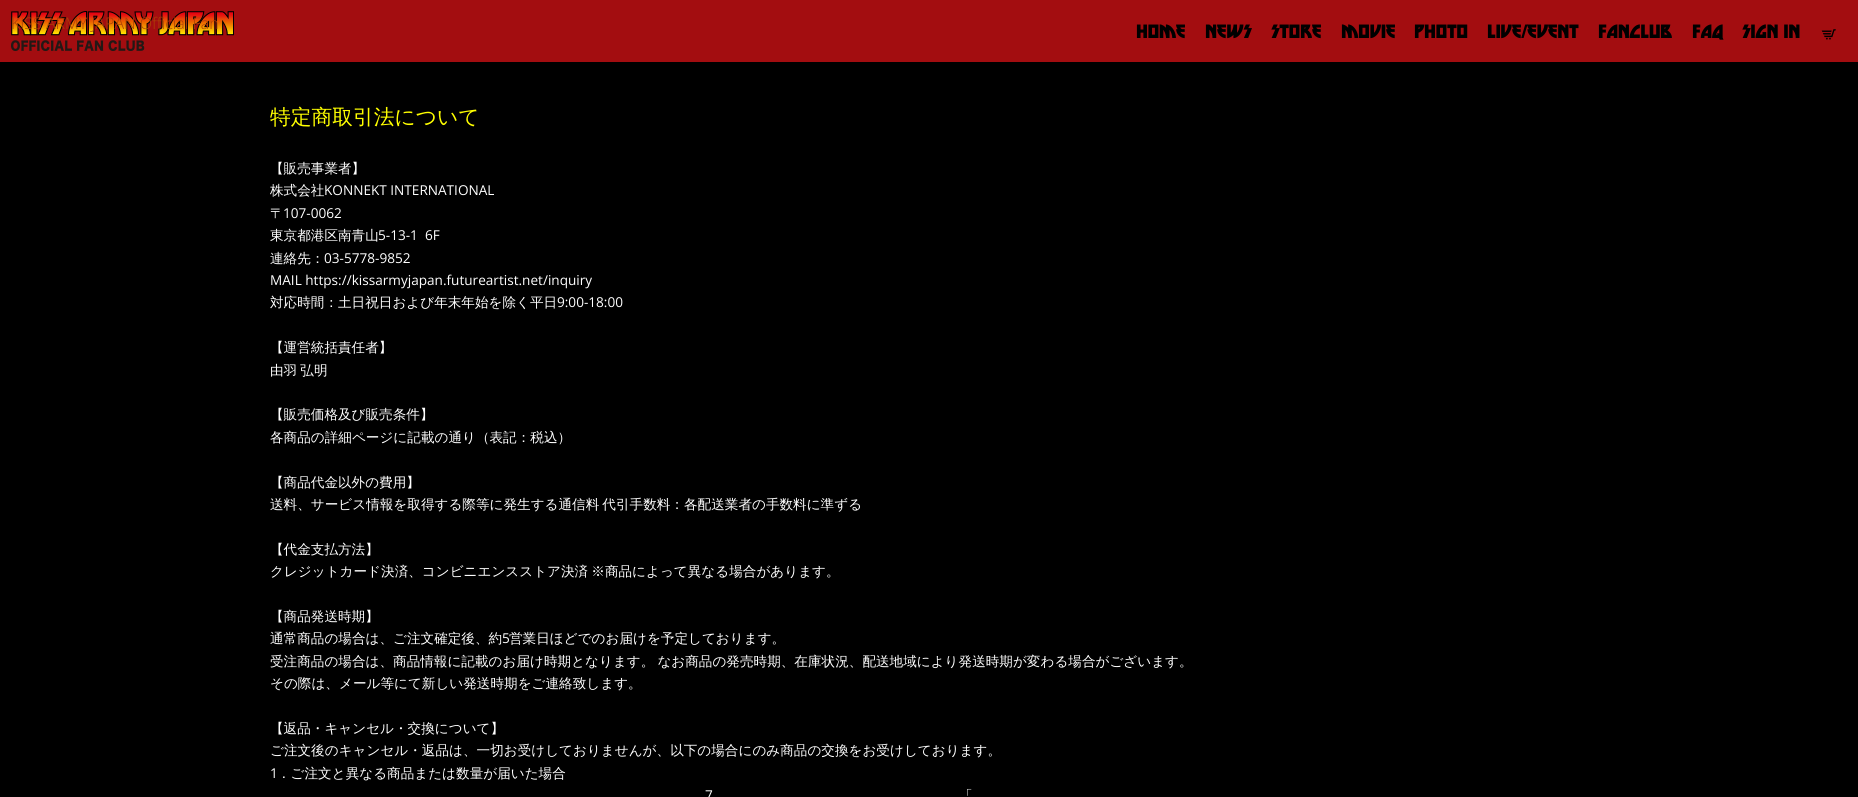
import math
import cairo

surface = cairo.ImageSurface(cairo.Format.RGB24, 1858, 797)
ctx = cairo.Context(surface)
options = cairo.FontOptions()
options.set_hint_metrics(cairo.HintMetrics.OFF)
options.set_hint_style(cairo.HintStyle.NONE)
ctx.set_font_options(options)
ctx.set_miter_limit(4)


def ink(r, g, b):
    ctx.set_source_rgb(r / 255, g / 255, b / 255)


def write(x, y, s, family, size, color, bold=False, italic=False):
    ctx.select_font_face(family, cairo.FontSlant.ITALIC if italic else cairo.FontSlant.NORMAL, cairo.FontWeight.BOLD if bold else cairo.FontWeight.NORMAL)
    ctx.set_font_size(size)
    ink(*color)
    ctx.move_to(x, y)
    ctx.show_text(s)


def write_spaced(x, y, s, letter, word):
    ctx.move_to(x, y)
    for ch in s:
        ctx.show_text(ch)
        ctx.rel_move_to(letter + word * (ch == ' '), 0)


def block(x, y, w, h, *color):
    ink(*color)
    ctx.rectangle(x, y, w, h)
    ctx.fill()


def paste(path, x, y, w, h):
    ctx.save()
    ctx.set_source_surface(cairo.ImageSurface.create_from_png(path), x, y)
    ctx.rectangle(x, y, w, h)
    ctx.fill()
    ctx.restore()


s1 = dict(family="Open Sans Light", size=16, color=(172, 65, 6))
s2 = dict(family="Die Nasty", size=17.5, color=(0, 0, 0), bold=True)
s3 = dict(family="WenQuanYi Zen Hei Medium", size=20.75, color=(255, 255, 0))
s4 = dict(family="WenQuanYi Zen Hei Medium", size=13.6, color=(255, 255, 255))
s5 = dict(family="Open Sans", size=13.6, color=(255, 255, 255))

ink(0, 0, 0)
ctx.paint()
block(0, 0, 1858, 62, 163, 13, 16)
paste("pic1.png", 11, 11, 223, 40)
write(11, 29, "KISS ARMY JAPAN Official Fan", **s1)
write(1136, 38, "HOME", **s2)
write(1205, 38, "NEWS", **s2)
write(1271, 38, "STORE", **s2)
write(1341, 38, "MOVIE", **s2)
write(1414, 38, "PHOTO", **s2)
write(1487, 38, "LIVE/EVENT", **s2)
write(1598, 38, "FANCLUB", **s2)
write(1692, 38, "FAQ", **s2)
write(1742, 38, "SIGN IN", **s2)
paste("pic2.png", 1821, 29, 15, 11)
write(270, 124, "特定商取引法について", **s3)
write(270, 173, "【販売事業者】", **s4)
write(270, 195, "株式会社", **s4)
write(324, 195, "KONNEKT INTERNATIONAL", **s5)
write(270, 218, "〒", **s4)
write(283, 218, "107-0062", **s5)
write(270, 240, "東京都港区南青山", **s4)
write(378, 240, "5-13-1  6F", **s5)
write(270, 263, "連絡先：", **s4)
write(324, 263, "03-5778-9852", **s5)
write(270, 285, "MAIL https://kissarmyjapan.futureartist.net/inquiry", **s5)
write(270, 307, "対応時間：土日祝日および年末年始を除く平日", **s4)
write(557, 307, "9:00-18:00", **s5)
write(270, 352, "【運営統括責任者】", **s4)
write_spaced(270, 375, "由羽 弘明", 0, -1)
write(270, 419, "【販売価格及び販売条件】", **s4)
write(270, 442, "各商品の詳細ページに記載の通り（表記：税込）", **s4)
write(270, 487, "【商品代金以外の費用】", **s4)
write_spaced(270, 509, "送料、サービス情報を取得する際等に発生する通信料 代引手数料：各配送業者の手数料に準ずる", 0, -1)
write(270, 554, "【代金支払方法】", **s4)
write_spaced(270, 576, "クレジットカード決済、コンビニエンスストア決済 ※商品によって異なる場合があります。", 0, -1)
write(270, 621, "【商品発送時期】", **s4)
write(270, 643, "通常商品の場合は、ご注文確定後、約", **s4)
write(502, 643, "5", **s5)
write(509, 643, "営業日ほどでのお届けを予定しております。", **s4)
write_spaced(270, 666, "受注商品の場合は、商品情報に記載のお届け時期となります。 なお商品の発売時期、在庫状況、配送地域により発送時期が変わる場合がございます。", 0, -1)
write(270, 688, "その際は、メール等にて新しい発送時期をご連絡致します。", **s4)
write(270, 733, "【返品・キャンセル・交換について】", **s4)
write(270, 755, "ご注文後のキャンセル・返品は、一切お受けしておりませんが、以下の場合にのみ商品の交換をお受けしております。", **s4)
write(270, 778, "1", **s5)
write(277, 778, "．ご注文と異なる商品または数量が届いた場合", **s4)
write(705, 800, "7", **s5)
write(959, 800, "「", **s4)
surface.write_to_png("screenshot.png")
